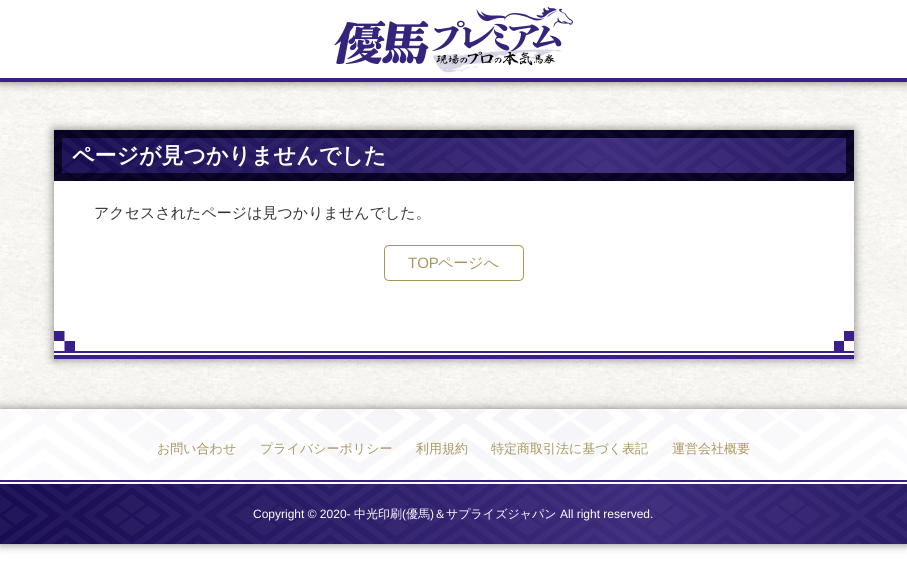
import math
import cairo

surface = cairo.ImageSurface(cairo.Format.RGB24, 907, 568)
ctx = cairo.Context(surface)
options = cairo.FontOptions()
options.set_hint_metrics(cairo.HintMetrics.OFF)
options.set_hint_style(cairo.HintStyle.NONE)
ctx.set_font_options(options)
ctx.set_miter_limit(4)


def ink(r, g, b):
    ctx.set_source_rgb(r / 255, g / 255, b / 255)


def write(x, y, s, family, size, color, bold=False, italic=False):
    ctx.select_font_face(family, cairo.FontSlant.ITALIC if italic else cairo.FontSlant.NORMAL, cairo.FontWeight.BOLD if bold else cairo.FontWeight.NORMAL)
    ctx.set_font_size(size)
    ink(*color)
    ctx.move_to(x, y)
    ctx.show_text(s)


def block(x, y, w, h, *color):
    ink(*color)
    ctx.rectangle(x, y, w, h)
    ctx.fill()


def round_path(x, y, w, h, r):
    ctx.new_sub_path()
    for i, (u, v) in enumerate([(x + w - r, y + h - r), (x + r, y + h - r), (x + r, y + r), (x + w - r, y + r)]):
        ctx.arc(u, v, r, i * math.pi / 2, (i + 1) * math.pi / 2)
    ctx.close_path()


def blur_box(x, y, w, h, r, blur, alpha):
    ctx.push_group_with_content(cairo.Content.ALPHA)
    ctx.set_operator(cairo.Operator.SOURCE)
    for i in range(15, -16, -2):
        e = blur * i / 6
        if min(w, h) + 2 * e > 0:
            ctx.set_source_rgba(0, 0, 0, alpha * math.erfc((i - 1) / 8.5) / 2)
            round_path(x - e, y - e, w + 2 * e, h + 2 * e, max(0, min(r + e + blur * .6, min(w, h) / 2 + e)))
            ctx.fill()
    ctx.mask(ctx.pop_group())


def paste(path, x, y, w, h):
    ctx.save()
    ctx.set_source_surface(cairo.ImageSurface.create_from_png(path), x, y)
    ctx.rectangle(x, y, w, h)
    ctx.fill()
    ctx.restore()


s1 = dict(family="WenQuanYi Zen Hei", size=22, color=(255, 255, 255), bold=True)
s2 = dict(family="WenQuanYi Zen Hei Medium", size=15, color=(51, 51, 51))
s3 = dict(family="Liberation Sans", size=15, color=(168, 151, 93))
s4 = dict(family="WenQuanYi Zen Hei Medium", size=15, color=(168, 151, 93))
s5 = dict(family="WenQuanYi Zen Hei Medium", size=13, color=(168, 151, 93))
s6 = dict(family="Liberation Sans", size=12, color=(255, 255, 255))
s7 = dict(family="WenQuanYi Zen Hei Medium", size=12, color=(255, 255, 255))

ink(255, 255, 255)
ctx.paint()
paste("pic1.png", 0, 82, 907, 327)
ink(0, 0, 0)
blur_box(0, 0, 907, 82, 0, 5, 0.5)
block(0, 0, 907, 78, 255, 255, 255)
block(0, 78, 907, 4, 59, 30, 135)
paste("pic2.png", 334, 6, 239, 68)
ink(0, 0, 0)
blur_box(54, 130, 800, 229, 0, 5, 0.5)
block(54, 181, 800, 174, 255, 255, 255)
block(54, 130, 800, 51, 14, 4, 71)
paste("pic3.png", 54, 130, 800, 51)
ctx.rectangle(58, 134, 792, 43)
ctx.set_source_rgba(0, 0, 0, 0.5)
ctx.set_line_width(8)
ctx.stroke()
write(72, 163, "ページが見つかりませんでした", **s1)
write(94, 218, "アクセスされたページは見つかりませんでした。", **s2)
round_path(384.5, 245.5, 139, 35, 4.5)
ink(168, 151, 93)
ctx.set_line_width(1)
ctx.stroke()
write(408, 268, "TOP", **s3)
write(438, 268, "ページへ", **s4)
block(54, 355, 800, 4, 59, 30, 135)
paste("pic4.png", 54, 331, 800, 20)
block(54, 351, 800, 2, 59, 30, 135)
ink(0, 0, 0)
blur_box(0, 409, 907, 135, 0, 5, 0.5)
paste("pic5.png", 0, 409, 907, 75)
write(157, 453, "お問い合わせ", **s5)
write(260, 453, "プライバシーポリシー", **s5)
write(416, 453, "利用規約", **s5)
write(491, 453, "特定商取引法に基づく表記", **s5)
write(672, 453, "運営会社概要", **s5)
block(0, 480, 907, 2, 59, 30, 135)
block(0, 484, 907, 60, 14, 4, 71)
paste("pic6.png", 0, 484, 907, 60)
write(253, 518, "Copyright © 2020-", **s6)
write(354, 518, "中光印刷", **s7)
write(402, 518, "(", **s6)
write(406, 518, "優馬", **s7)
write(430, 518, ")", **s6)
write(434, 518, "＆サプライズジャパン", **s7)
write(560, 518, "All right reserved.", **s6)
surface.write_to_png("screenshot.png")
